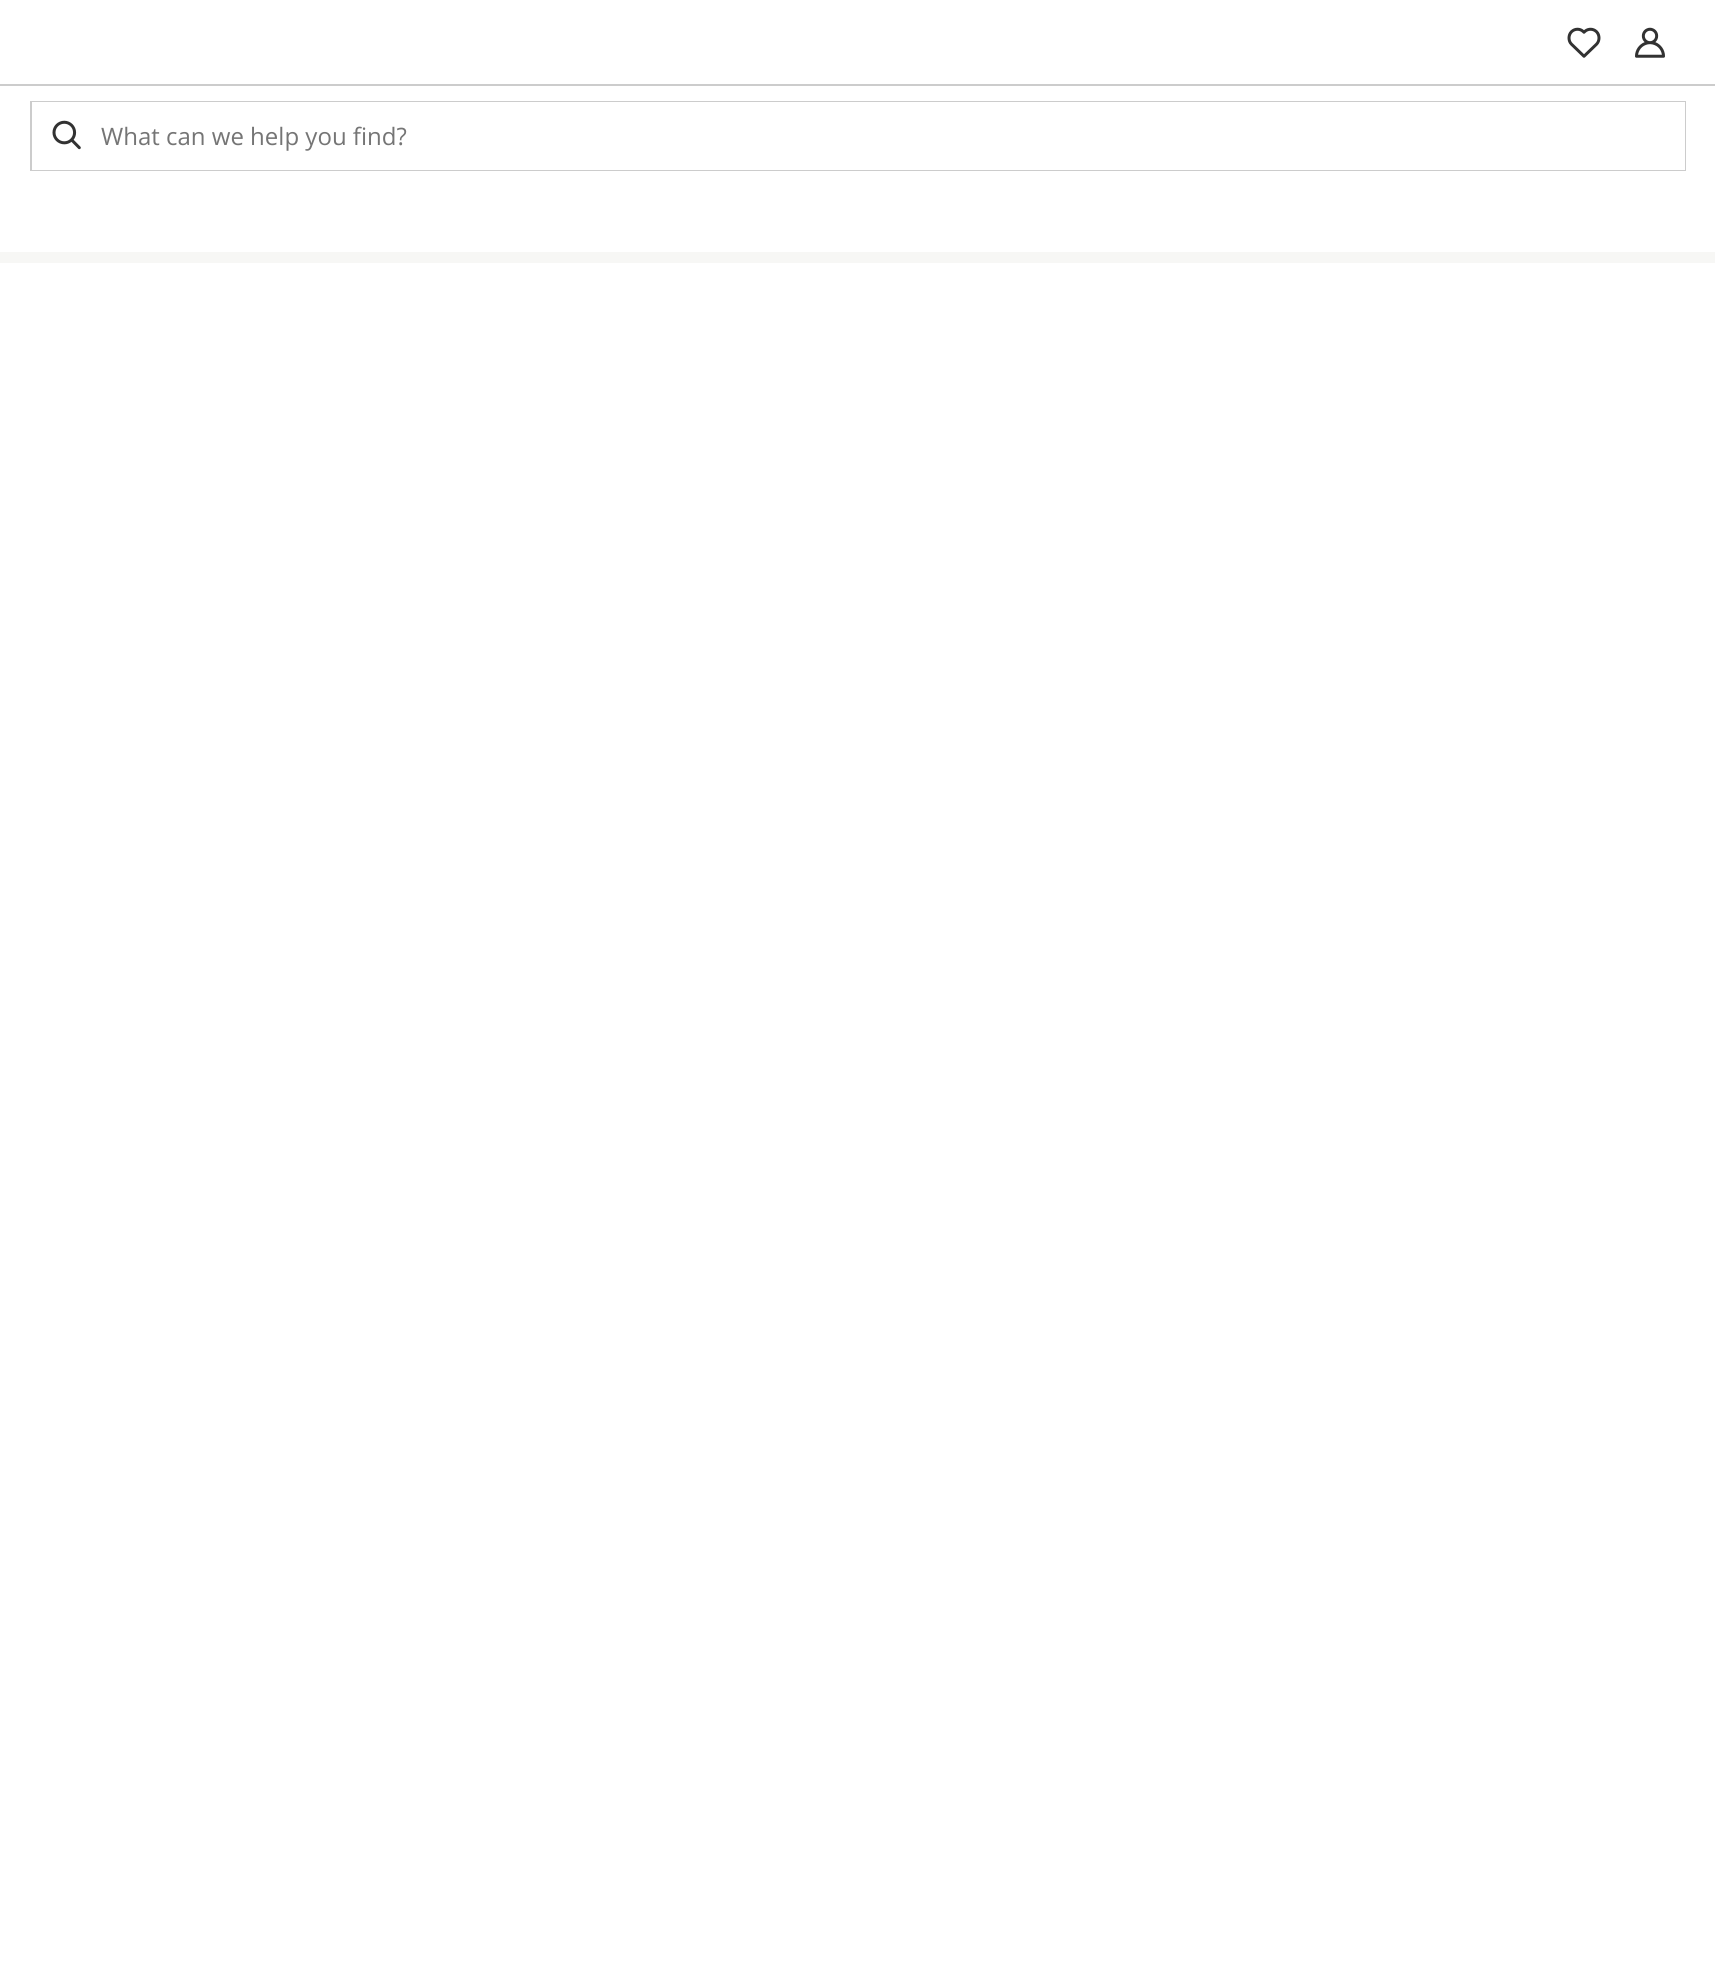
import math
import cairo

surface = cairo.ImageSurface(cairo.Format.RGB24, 1715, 1976)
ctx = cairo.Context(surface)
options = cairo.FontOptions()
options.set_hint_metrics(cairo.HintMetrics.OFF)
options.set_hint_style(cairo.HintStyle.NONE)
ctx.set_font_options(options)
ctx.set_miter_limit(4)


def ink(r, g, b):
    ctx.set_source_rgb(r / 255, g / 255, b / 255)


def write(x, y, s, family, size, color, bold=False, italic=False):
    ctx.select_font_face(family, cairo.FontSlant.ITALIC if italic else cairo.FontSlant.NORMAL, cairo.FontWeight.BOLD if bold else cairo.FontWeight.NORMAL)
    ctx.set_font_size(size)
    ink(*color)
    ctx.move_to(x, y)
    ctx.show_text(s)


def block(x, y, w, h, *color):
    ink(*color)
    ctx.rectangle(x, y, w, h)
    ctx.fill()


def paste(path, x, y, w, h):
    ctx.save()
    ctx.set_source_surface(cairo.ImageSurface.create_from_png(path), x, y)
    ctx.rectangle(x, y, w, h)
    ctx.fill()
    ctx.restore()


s1 = dict(family="Open Sans", size=24, color=(117, 117, 117))

ink(255, 255, 255)
ctx.paint()
block(0, 84, 1715, 2, 204, 204, 204)
paste("pic1.png", 1567, 27, 34, 31)
paste("pic2.png", 1635, 27, 30, 31)
ctx.rectangle(31, 102, 1654, 68)
ctx.stroke()
block(32, 102, 1653, 68, 255, 255, 255)
paste("pic3.png", 52, 120, 29, 30)
write(101, 145, "What can we help you find?", **s1)
block(0, 252, 1715, 11, 247, 247, 245)
surface.write_to_png("screenshot.png")
